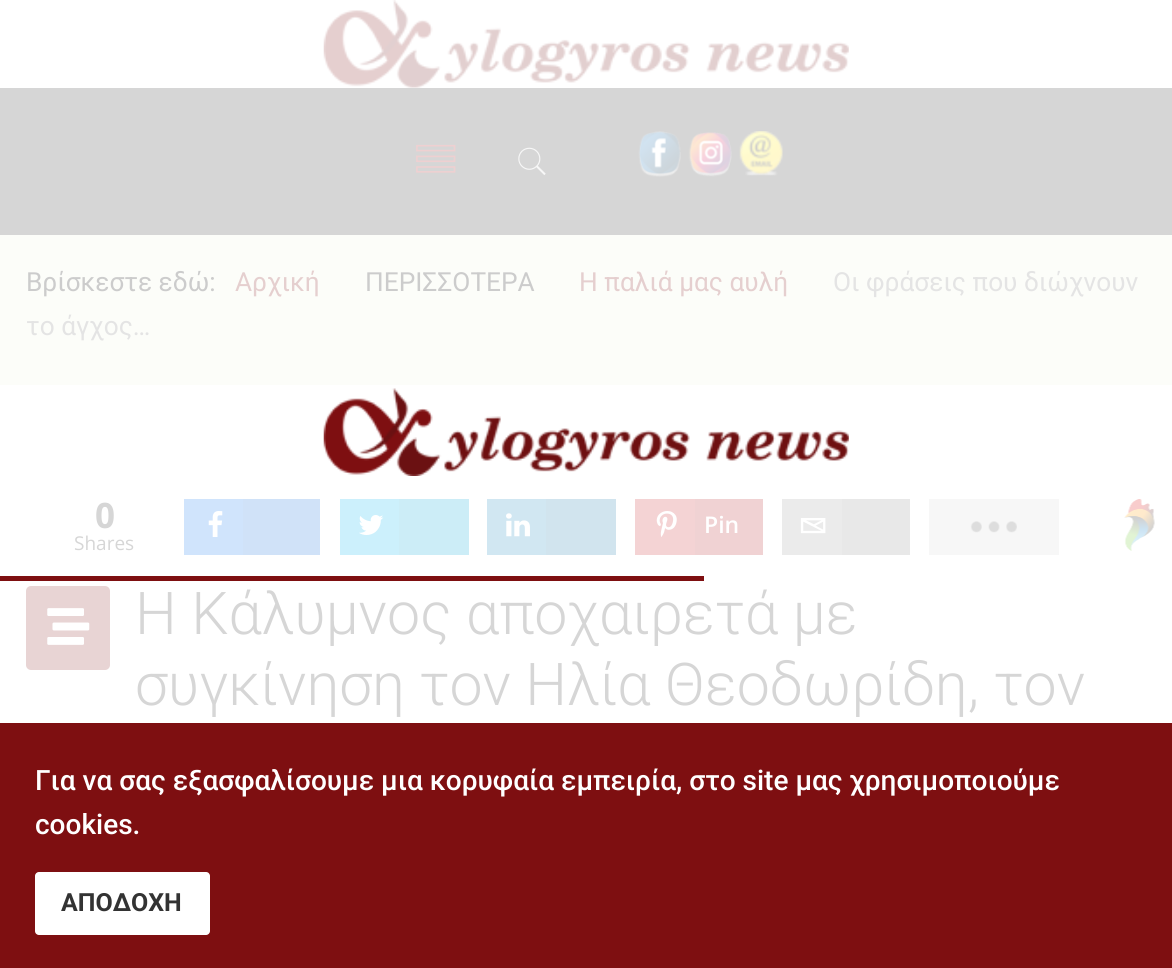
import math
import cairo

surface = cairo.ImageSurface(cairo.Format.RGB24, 1172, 968)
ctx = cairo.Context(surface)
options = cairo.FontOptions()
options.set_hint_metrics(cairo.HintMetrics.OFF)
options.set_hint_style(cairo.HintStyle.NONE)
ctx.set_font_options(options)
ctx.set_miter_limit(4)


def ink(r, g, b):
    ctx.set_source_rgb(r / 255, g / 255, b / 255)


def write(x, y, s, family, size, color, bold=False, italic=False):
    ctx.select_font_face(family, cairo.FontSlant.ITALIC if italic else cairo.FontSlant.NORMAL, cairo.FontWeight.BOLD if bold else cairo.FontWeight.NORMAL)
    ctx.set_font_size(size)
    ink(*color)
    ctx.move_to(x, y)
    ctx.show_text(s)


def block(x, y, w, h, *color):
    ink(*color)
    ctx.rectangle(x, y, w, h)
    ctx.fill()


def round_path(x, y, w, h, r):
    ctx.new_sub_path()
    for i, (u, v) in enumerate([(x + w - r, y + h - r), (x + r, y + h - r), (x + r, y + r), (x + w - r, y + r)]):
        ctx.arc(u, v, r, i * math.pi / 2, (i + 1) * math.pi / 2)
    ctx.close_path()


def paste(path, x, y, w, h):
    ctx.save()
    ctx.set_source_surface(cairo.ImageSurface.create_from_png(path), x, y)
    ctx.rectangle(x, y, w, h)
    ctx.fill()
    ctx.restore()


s1 = dict(family="Roboto", size=26.25, color=(204, 204, 204))
s2 = dict(family="Roboto", size=26.25, color=(229, 207, 207))
s3 = dict(family="Roboto", size=26.25, color=(228, 228, 228))
s4 = dict(family="Open Sans", size=35, color=(214, 214, 214), bold=True)
s5 = dict(family="Open Sans", size=19, color=(214, 214, 214))
s6 = dict(family="Open Sans SemiBold", size=23, color=(255, 255, 255))
s7 = dict(family="Roboto Light", size=59, color=(214, 214, 214))
s8 = dict(family="Roboto Medium", size=28, color=(255, 255, 255))
s9 = dict(family="Roboto", size=25, color=(51, 51, 51), bold=True)

ink(255, 255, 255)
ctx.paint()
paste("pic1.png", 323, 0, 526, 88)
block(0, 88, 1172, 147, 214, 214, 214)
paste("pic2.png", 416, 144, 40, 29)
paste("pic3.png", 518, 147, 28, 29)
paste("pic4.png", 638, 131, 43, 46)
paste("pic5.png", 688, 132, 44, 45)
paste("pic6.png", 739, 131, 44, 45)
block(0, 235, 1172, 150, 252, 253, 249)
write(26, 291, "Βρίσκεστε εδώ:", **s1)
write(235, 291, "Αρχική", **s2)
write(365, 291, "ΠΕΡΙΣΣΟΤΕΡΑ", **s1)
write(579, 291, "Η παλιά μας αυλή", **s2)
write(833, 291, "Οι φράσεις που διώχνουν", **s3)
write(26, 335, "το άγχος…", **s3)
paste("pic7.png", 323, 388, 526, 88)
block(0, 576, 704, 5, 126, 15, 17)
write(95, 528, "0", **s4)
write(74, 550, "Shares", **s5)
block(184, 499, 59, 56, 208, 228, 252)
paste("pic8.png", 208, 511, 15, 26)
block(243, 499, 77, 56, 208, 226, 248)
block(340, 499, 59, 56, 204, 240, 252)
paste("pic9.png", 359, 515, 25, 20)
block(399, 499, 70, 56, 204, 237, 247)
block(487, 499, 59, 56, 209, 231, 242)
paste("pic10.png", 506, 513, 24, 24)
block(546, 499, 70, 56, 209, 228, 238)
block(635, 499, 60, 56, 244, 211, 212)
paste("pic11.png", 656, 511, 21, 26)
block(695, 499, 68, 56, 240, 210, 211)
write(704, 533, "Pin", **s6)
block(782, 499, 60, 56, 235, 235, 235)
paste("pic12.png", 800, 518, 26, 16)
block(842, 499, 68, 56, 232, 232, 232)
block(929, 499, 130, 56, 247, 247, 247)
paste("pic13.png", 970, 521, 47, 12)
paste("pic14.png", 1124, 499, 31, 52)
ink(232, 212, 212)
round_path(26, 586, 84, 84, 5)
ctx.fill()
paste("pic15.png", 47, 608, 43, 37)
write(135, 634, "Η Κάλυμνος αποχαιρετά με", **s7)
write(135, 705, "συγκίνηση τον Ηλία Θεοδωρίδη, τον", **s7)
block(0, 723, 1172, 245, 126, 15, 17)
write(35, 790, "Για να σας εξασφαλίσουμε μια κορυφαία εμπειρία, στο site μας χρησιμοποιούμε", **s8)
write(35, 834, "cookies.", **s8)
round_path(35, 872, 175, 63, 4)
ctx.fill()
write(61, 911, "ΑΠΟΔΟΧΗ", **s9)
surface.write_to_png("screenshot.png")
